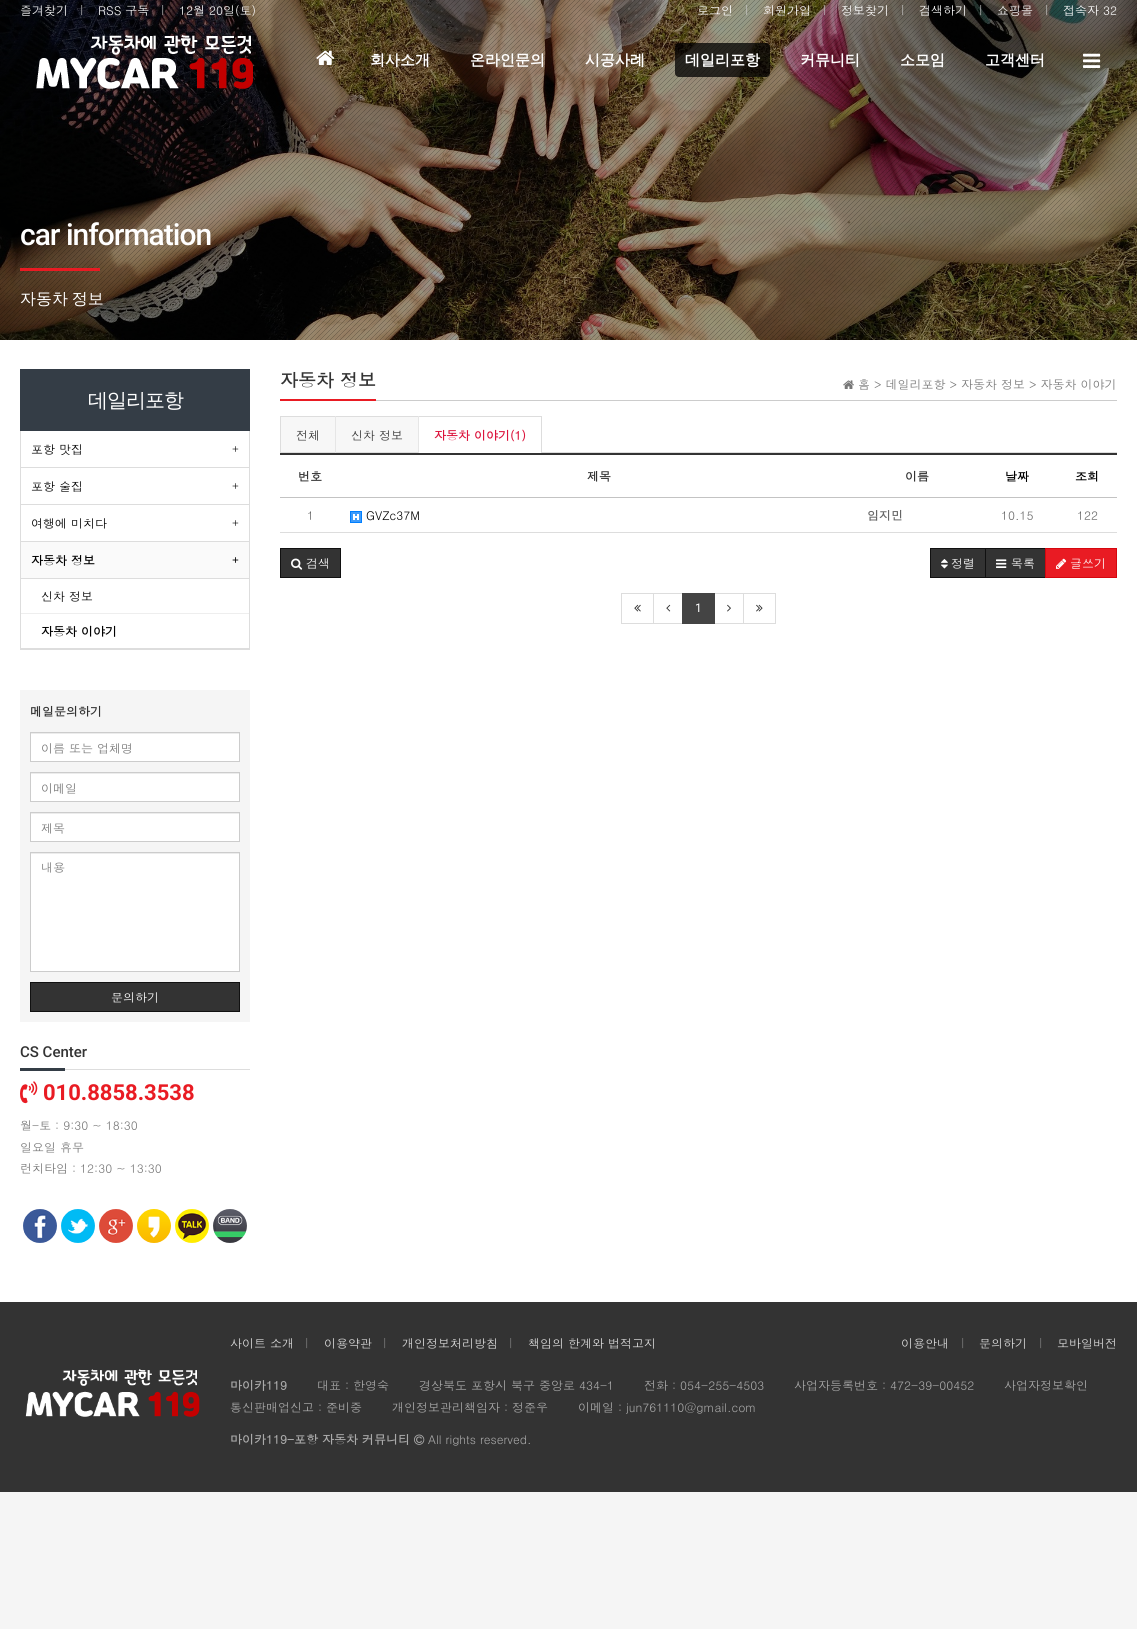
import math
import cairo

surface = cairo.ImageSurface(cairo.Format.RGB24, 1137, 1629)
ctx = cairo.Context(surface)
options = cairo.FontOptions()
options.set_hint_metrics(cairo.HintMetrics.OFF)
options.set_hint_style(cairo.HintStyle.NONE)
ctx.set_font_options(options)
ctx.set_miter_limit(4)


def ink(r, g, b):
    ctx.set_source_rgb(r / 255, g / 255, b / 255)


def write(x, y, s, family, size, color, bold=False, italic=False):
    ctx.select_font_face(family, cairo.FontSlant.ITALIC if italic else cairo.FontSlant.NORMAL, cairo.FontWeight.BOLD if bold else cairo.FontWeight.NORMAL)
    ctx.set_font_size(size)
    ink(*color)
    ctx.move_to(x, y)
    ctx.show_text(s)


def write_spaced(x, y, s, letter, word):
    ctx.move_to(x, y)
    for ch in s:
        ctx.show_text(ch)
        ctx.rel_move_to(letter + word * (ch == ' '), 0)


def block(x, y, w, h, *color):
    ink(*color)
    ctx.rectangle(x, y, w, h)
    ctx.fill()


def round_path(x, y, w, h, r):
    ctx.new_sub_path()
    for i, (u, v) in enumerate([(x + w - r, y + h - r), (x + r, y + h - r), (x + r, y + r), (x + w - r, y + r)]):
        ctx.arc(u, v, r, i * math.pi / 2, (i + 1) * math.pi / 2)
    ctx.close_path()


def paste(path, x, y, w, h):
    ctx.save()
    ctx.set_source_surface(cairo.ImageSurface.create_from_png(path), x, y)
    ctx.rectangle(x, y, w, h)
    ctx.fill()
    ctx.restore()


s1 = dict(family="Dotum", size=12, color=(255, 255, 255))
s2 = dict(family="Dotum", size=11, color=(204, 204, 204))
s3 = dict(family="WenQuanYi Zen Hei", size=15, color=(255, 255, 255), bold=True)
s4 = dict(family="Dotum", size=12, color=(0, 0, 0))
s5 = dict(family="Liberation Serif", size=12, color=(0, 0, 0))
s6 = dict(family="Dotum", size=12, color=(0, 0, 0), bold=True)
s7 = dict(family="Liberation Serif", size=12, color=(0, 0, 0), bold=True)
s8 = dict(family="Dotum", size=12, color=(51, 51, 51), bold=True)
s9 = dict(family="Dotum", size=12, color=(119, 119, 119))
s10 = dict(family="Roboto Medium", size=15, color=(51, 51, 51))
s11 = dict(family="Roboto", size=22, color=(233, 27, 35), bold=True)
s12 = dict(family="Dotum", size=18, color=(51, 51, 51), bold=True)
s13 = dict(family="Dotum", size=12, color=(51, 51, 51))
s14 = dict(family="Dotum", size=12, color=(220, 20, 60), bold=True)
s15 = dict(family="Dotum", size=12, color=(102, 102, 102))
s16 = dict(family="Dotum", size=12, color=(102, 102, 102), bold=True)
s17 = dict(family="Roboto", size=12, color=(255, 255, 255))
s18 = dict(family="Dotum", size=12, color=(221, 221, 221))
s19 = dict(family="Dotum", size=11, color=(136, 136, 136))
s20 = dict(family="Dotum", size=12, color=(170, 170, 170), bold=True)
s21 = dict(family="Dotum", size=12, color=(170, 170, 170))

ink(245, 245, 245)
ctx.paint()
block(0, 340, 1137, 962, 255, 255, 255)
paste("pic4.png", 0, 0, 1137, 340)
paste("pic5.png", 0, 0, 1137, 340)
write(20, 15, "즐겨찾기", **s1)
write(79, 14, "|", **s2)
write(98, 15, "RSS 구독", **s1)
write(160, 14, "|", **s2)
write(179, 15, "12월 20일(토)", **s1)
write(697, 15, "로그인", **s1)
write(744, 14, "|", **s2)
write(763, 15, "회원가입", **s1)
write(822, 14, "|", **s2)
write(841, 15, "정보찾기", **s1)
write(900, 14, "|", **s2)
write(919, 15, "검색하기", **s1)
write(978, 14, "|", **s2)
write(997, 15, "쇼핑몰", **s1)
write(1044, 14, "|", **s2)
write(1063, 15, "접속자 32", **s1)
paste("pic1.png", 36, 34, 217, 55)
paste("pic2.png", 316, 50, 19, 15)
write(370, 65, "회사소개", **s3)
write(470, 65, "온라인문의", **s3)
write(585, 65, "시공사례", **s3)
ctx.set_source_rgba(0, 0, 0, 0.75)
round_path(675, 43, 95, 34, 4)
ctx.fill()
write(685, 65, "데일리포항", **s3)
write(800, 65, "커뮤니티", **s3)
write(900, 65, "소모임", **s3)
write(985, 65, "고객센터", **s3)
paste("pic3.png", 1083, 53, 18, 15)
ctx.select_font_face("Roboto Medium")
ctx.set_font_size(30)
write_spaced(20, 245, "car information", -1, 0)
block(20, 268, 80, 3, 233, 27, 35)
ctx.select_font_face("WenQuanYi Zen Hei Medium")
ctx.set_font_size(16)
ink(255, 255, 255)
write_spaced(20, 304, "자동차 정보", 0, -1)
block(20, 369, 230, 62, 52, 61, 70)
ctx.set_font_size(20)
ink(255, 255, 255)
write_spaced(88, 407, "데일리포항", -1, 0)
block(249, 431, 1, 219, 221, 221, 221)
block(20, 649, 230, 1, 221, 221, 221)
block(20, 431, 1, 219, 221, 221, 221)
block(21, 467, 228, 1, 221, 221, 221)
write(31, 454, "포항 맛집", **s4)
write(232, 453, "+", **s5)
block(21, 504, 228, 1, 221, 221, 221)
write(31, 491, "포항 술집", **s4)
write(232, 490, "+", **s5)
block(21, 541, 228, 1, 221, 221, 221)
write(31, 528, "여행에 미치다", **s4)
write(232, 527, "+", **s5)
block(21, 578, 228, 1, 221, 221, 221)
block(21, 542, 228, 36, 250, 250, 250)
write(31, 565, "자동차 정보", **s6)
write(232, 564, "+", **s7)
block(21, 613, 228, 1, 238, 238, 238)
write(41, 601, "신차 정보", **s4)
block(21, 648, 228, 1, 221, 221, 221)
write(41, 636, "자동차 이야기", **s6)
block(20, 690, 230, 332, 245, 245, 245)
write(30, 716, "메일문의하기", **s8)
block(31, 734, 208, 27, 255, 255, 255)
block(31, 733, 208, 1, 236, 236, 236)
ctx.rectangle(30.5, 732.5, 209, 29)
ink(204, 204, 204)
ctx.set_line_width(1)
ctx.stroke()
write(41, 753, "이름 또는 업체명", **s9)
block(31, 774, 208, 27, 255, 255, 255)
block(31, 773, 208, 1, 236, 236, 236)
ctx.rectangle(30.5, 772.5, 209, 29)
ink(204, 204, 204)
ctx.stroke()
write(41, 793, "이메일", **s9)
block(31, 814, 208, 27, 255, 255, 255)
block(31, 813, 208, 1, 236, 236, 236)
ctx.rectangle(30.5, 812.5, 209, 29)
ink(204, 204, 204)
ctx.stroke()
write(41, 833, "제목", **s9)
block(31, 854, 208, 117, 255, 255, 255)
block(31, 853, 208, 1, 236, 236, 236)
ctx.rectangle(30.5, 852.5, 209, 119)
ink(204, 204, 204)
ctx.stroke()
write(41, 872, "내용", **s9)
ink(51, 51, 51)
ctx.rectangle(30.5, 982.5, 209, 29)
ctx.fill_preserve()
ink(17, 17, 17)
ctx.stroke()
write(111, 1002, "문의하기", **s1)
write(20, 1057, "CS Center", **s10)
block(20, 1068, 45, 3, 52, 61, 70)
block(65, 1069, 185, 1, 221, 221, 221)
paste("pic6.png", 20, 1081, 18, 23)
write(43, 1100, "010.8858.3538", **s11)
write(20, 1130, "월-토 : 9:30 ~ 18:30", **s9)
write(20, 1152, "일요일 휴무", **s9)
write(20, 1173, "런치타임 : 12:30 ~ 13:30", **s9)
paste("pic7.png", 23, 1209, 34, 34)
paste("pic8.png", 61, 1209, 34, 34)
paste("pic9.png", 99, 1209, 34, 34)
paste("pic10.png", 137, 1209, 34, 34)
paste("pic11.png", 175, 1209, 34, 34)
paste("pic12.png", 213, 1209, 34, 34)
block(376, 400, 741, 1, 204, 204, 204)
block(280, 399, 96, 2, 233, 27, 35)
write(280, 387, "자동차 정보", **s12)
paste("pic13.png", 843, 380, 11, 9)
write(858, 389, "홈 > 데일리포항 > 자동차 정보 > 자동차 이야기", **s9)
block(542, 452, 575, 1, 221, 221, 221)
block(281, 417, 54, 35, 247, 247, 247)
block(280, 416, 262, 1, 221, 221, 221)
block(280, 416, 1, 37, 221, 221, 221)
block(281, 452, 54, 1, 221, 221, 221)
write(296, 440, "전체", **s13)
block(336, 417, 82, 35, 247, 247, 247)
block(335, 416, 1, 37, 230, 230, 230)
block(336, 452, 82, 1, 221, 221, 221)
write(351, 440, "신차 정보", **s13)
block(541, 416, 1, 37, 221, 221, 221)
block(418, 416, 1, 37, 230, 230, 230)
write(434, 440, "자동차 이야기(1)", **s14)
block(280, 453, 837, 2, 51, 51, 51)
block(280, 497, 837, 1, 195, 195, 195)
write(298, 481, "번호", **s8)
write(587, 481, "제목", **s8)
write(905, 481, "이름", **s8)
write(1005, 481, "날짜", **s6)
write(1075, 481, "조회", **s6)
block(280, 532, 837, 1, 221, 221, 221)
write(307, 520, "1", **s15)
paste("pic14.png", 350, 511, 12, 12)
write(366, 520, "GVZc37M", **s4)
write(867, 520, "임지민", **s16)
write(1001, 520, "10.15", **s15)
write(1077, 520, "122", **s15)
ink(51, 51, 51)
ctx.rectangle(280.5, 548.5, 60, 29)
ctx.fill_preserve()
ink(17, 17, 17)
ctx.stroke()
paste("pic15.png", 291, 558, 12, 12)
write(306, 568, "검색", **s1)
ink(51, 51, 51)
ctx.rectangle(930.5, 548.5, 55, 29)
ctx.fill_preserve()
ink(17, 17, 17)
ctx.stroke()
paste("pic16.png", 941, 559, 7, 10)
write(951, 568, "정렬", **s1)
ink(51, 51, 51)
ctx.rectangle(985.5, 548.5, 60, 29)
ctx.fill_preserve()
ink(17, 17, 17)
ctx.stroke()
paste("pic17.png", 996, 559, 11, 9)
write(1011, 568, "목록", **s1)
ink(233, 27, 35)
ctx.rectangle(1045.5, 548.5, 71, 29)
ctx.fill_preserve()
ink(213, 7, 15)
ctx.stroke()
paste("pic18.png", 1056, 558, 11, 11)
write(1070, 568, "글쓰기", **s1)
ctx.rectangle(621.5, 593.5, 32, 30)
ink(221, 221, 221)
ctx.stroke()
paste("pic19.png", 634, 604, 7, 8)
ctx.rectangle(653.5, 593.5, 29, 30)
ctx.stroke()
paste("pic20.png", 666, 604, 5, 8)
ctx.rectangle(714.5, 593.5, 29, 30)
ctx.stroke()
block(682, 593, 33, 31, 68, 68, 68)
write(695, 612, "1", **s17)
paste("pic21.png", 727, 604, 4, 8)
ctx.rectangle(743.5, 593.5, 32, 30)
ink(221, 221, 221)
ctx.stroke()
paste("pic22.png", 756, 604, 7, 8)
block(0, 1302, 1137, 190, 51, 51, 51)
paste("pic23.png", 25, 1369, 175, 48)
write(230, 1348, "사이트 소개", **s18)
write(304, 1347, "|", **s19)
write(324, 1348, "이용약관", **s18)
write(382, 1347, "|", **s19)
write(402, 1348, "개인정보처리방침", **s18)
write(508, 1347, "|", **s19)
write(528, 1348, "책임의 한계와 법적고지", **s18)
write(901, 1348, "이용안내", **s18)
write(960, 1347, "|", **s19)
write(979, 1348, "문의하기", **s18)
write(1038, 1347, "|", **s19)
write(1057, 1348, "모바일버전", **s18)
write(230, 1390, "마이카119", **s20)
write(317, 1390, "대표 : 한영숙", **s21)
write(419, 1390, "경상북도 포항시 북구 중앙로 434-1", **s21)
write(644, 1390, "전화 : 054-255-4503", **s21)
write(794, 1390, "사업자등록번호 : 472-39-00452", **s21)
write(1004, 1390, "사업자정보확인", **s21)
write(230, 1412, "통신판매업신고 : 준비중", **s21)
write(392, 1412, "개인정보관리책임자 : 정준우", **s21)
write(578, 1412, "이메일 : jun761110@gmail.com", **s21)
write(230, 1444, "마이카119-포항 자동차 커뮤니티", **s20)
paste("pic24.png", 414, 1434, 11, 11)
write(428, 1444, "All rights reserved.", **s21)
surface.write_to_png("screenshot.png")
